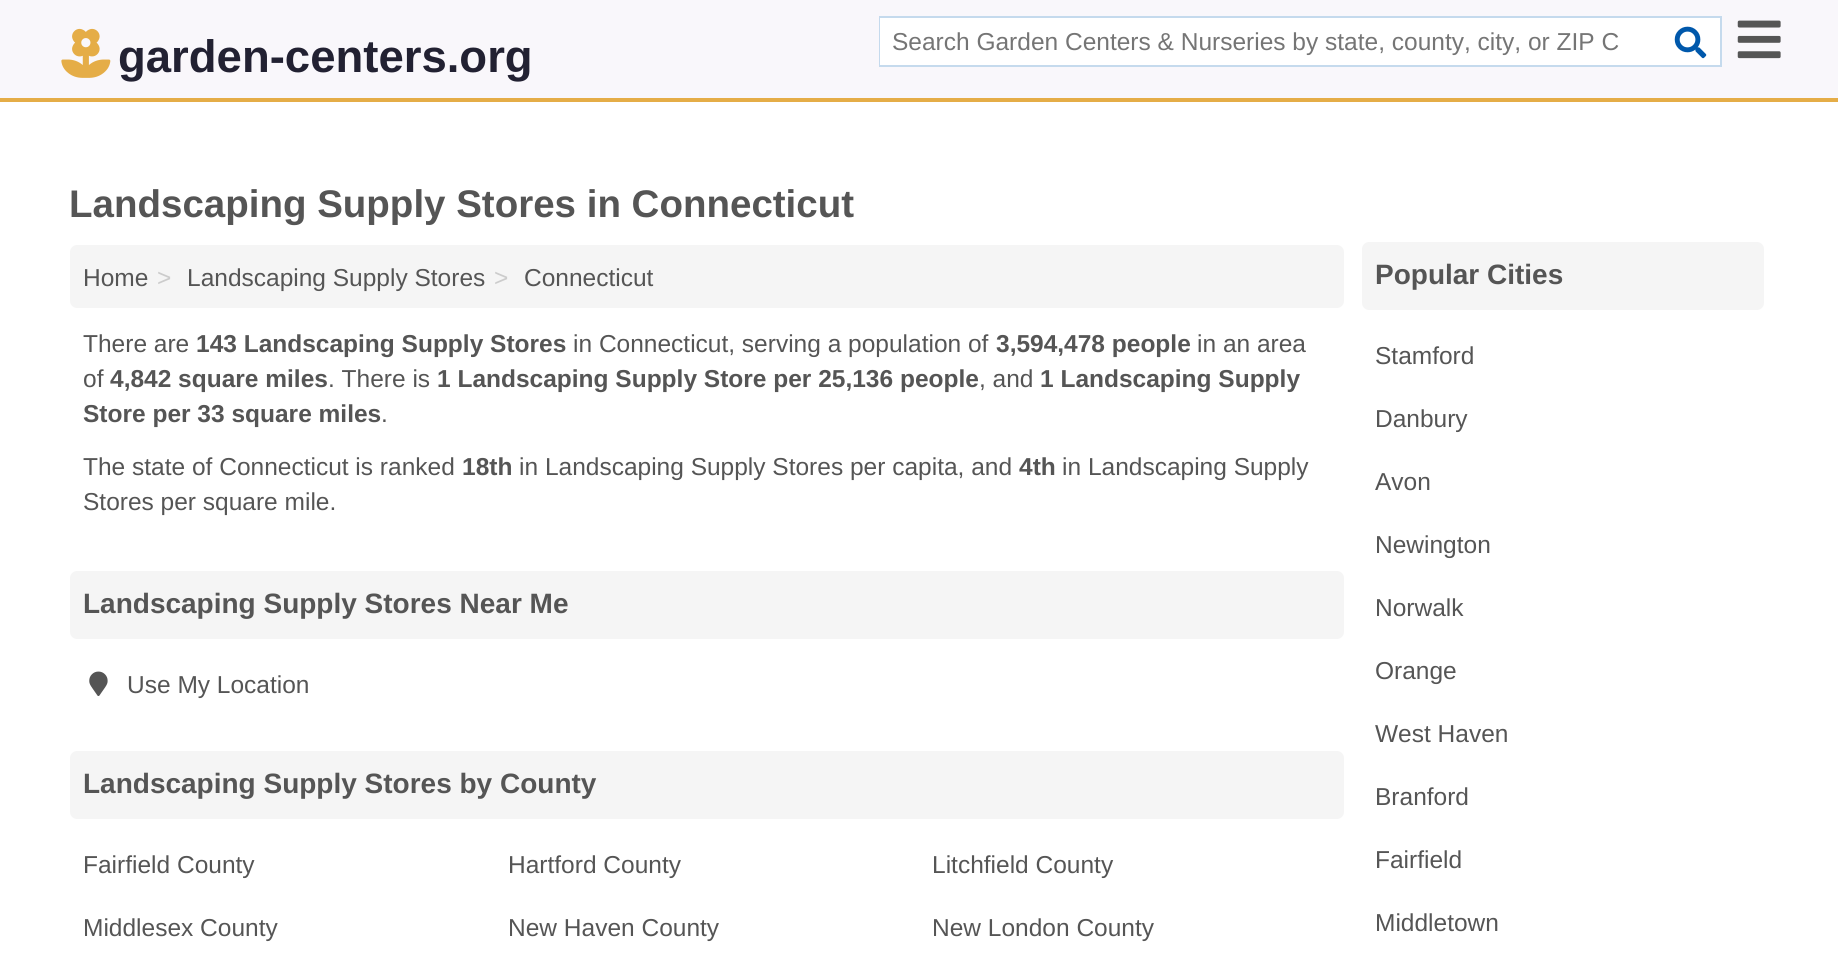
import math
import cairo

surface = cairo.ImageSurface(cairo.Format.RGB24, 1838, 963)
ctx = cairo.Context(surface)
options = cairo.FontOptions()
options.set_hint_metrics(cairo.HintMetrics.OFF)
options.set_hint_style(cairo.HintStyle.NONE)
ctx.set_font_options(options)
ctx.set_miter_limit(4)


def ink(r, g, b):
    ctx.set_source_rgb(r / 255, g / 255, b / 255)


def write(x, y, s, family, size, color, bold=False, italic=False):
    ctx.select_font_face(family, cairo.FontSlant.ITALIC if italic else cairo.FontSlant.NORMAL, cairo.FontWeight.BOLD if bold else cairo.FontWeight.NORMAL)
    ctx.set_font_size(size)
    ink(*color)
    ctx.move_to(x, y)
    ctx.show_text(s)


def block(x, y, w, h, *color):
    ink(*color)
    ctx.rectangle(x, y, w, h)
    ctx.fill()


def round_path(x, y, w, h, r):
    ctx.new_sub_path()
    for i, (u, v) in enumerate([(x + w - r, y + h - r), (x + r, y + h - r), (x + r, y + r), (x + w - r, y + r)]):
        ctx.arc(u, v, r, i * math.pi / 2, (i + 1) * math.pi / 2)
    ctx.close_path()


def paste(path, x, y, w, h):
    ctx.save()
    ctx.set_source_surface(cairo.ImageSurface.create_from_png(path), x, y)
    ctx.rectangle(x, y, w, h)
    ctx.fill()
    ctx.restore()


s1 = dict(family="Liberation Sans", size=45.5, color=(34, 33, 50), bold=True)
s2 = dict(family="Liberation Sans", size=24.5, color=(117, 117, 117))
s3 = dict(family="Liberation Sans", size=38.5, color=(85, 85, 85), bold=True)
s4 = dict(family="Liberation Sans", size=24.5, color=(85, 85, 85))
s5 = dict(family="Liberation Sans", size=24.5, color=(204, 204, 204))
s6 = dict(family="Liberation Sans", size=24.5, color=(85, 85, 85), bold=True)
s7 = dict(family="Liberation Sans", size=28, color=(85, 85, 85), bold=True)

ink(255, 255, 255)
ctx.paint()
block(0, 0, 1838, 98, 249, 247, 251)
block(0, 98, 1838, 4, 229, 173, 71)
paste("pic1.png", 61, 28, 50, 50)
write(118, 72, "garden-centers.org", **s1)
block(1636, 18, 84, 47, 255, 255, 255)
ctx.rectangle(880, 17, 841, 49)
ink(197, 218, 237)
ctx.stroke()
block(880, 18, 756, 47, 255, 255, 255)
write(892, 50, "Search Garden Centers & Nurseries by state, county, city, or ZIP C", **s2)
paste("pic2.png", 1674, 26, 33, 33)
paste("pic3.png", 1737, 20, 44, 39)
write(69, 217, "Landscaping Supply Stores in Connecticut", **s3)
ink(245, 245, 245)
round_path(70, 245, 1274, 63, 7)
ctx.fill()
write(83, 286, "Home", **s4)
write(157, 286, ">", **s5)
write(187, 286, "Landscaping Supply Stores", **s4)
write(494, 286, ">", **s5)
write(524, 286, "Connecticut", **s4)
write(83, 352, "There are", **s4)
write(196, 352, "143 Landscaping Supply Stores", **s6)
write(573, 352, "in Connecticut, serving a population of", **s4)
write(996, 352, "3,594,478 people", **s6)
write(1197, 352, "in an area", **s4)
write(83, 387, "of", **s4)
write(110, 387, "4,842 square miles", **s6)
write(328, 387, ". There is", **s4)
write(437, 387, "1 Landscaping Supply Store per 25,136 people", **s6)
write(979, 387, ", and", **s4)
write(1040, 387, "1 Landscaping Supply", **s6)
write(83, 422, "Store per 33 square miles", **s6)
write(381, 422, ".", **s4)
write(83, 475, "The state of Connecticut is ranked", **s4)
write(462, 475, "18th", **s6)
write(519, 475, "in Landscaping Supply Stores per capita, and", **s4)
write(1019, 475, "4th", **s6)
write(1062, 475, "in Landscaping Supply", **s4)
write(83, 510, "Stores per square mile.", **s4)
ink(245, 245, 245)
round_path(70, 571, 1274, 68, 7)
ctx.fill()
write(83, 613, "Landscaping Supply Stores Near Me", **s7)
paste("pic4.png", 89, 671, 19, 25)
write(127, 693, "Use My Location", **s4)
ink(245, 245, 245)
round_path(70, 751, 1274, 68, 7)
ctx.fill()
write(83, 793, "Landscaping Supply Stores by County", **s7)
write(83, 873, "Fairfield County", **s4)
write(508, 873, "Hartford County", **s4)
write(932, 873, "Litchfield County", **s4)
write(83, 936, "Middlesex County", **s4)
write(508, 936, "New Haven County", **s4)
write(932, 936, "New London County", **s4)
ink(245, 245, 245)
round_path(1362, 242, 402, 68, 7)
ctx.fill()
write(1375, 284, "Popular Cities", **s7)
write(1375, 364, "Stamford", **s4)
write(1375, 427, "Danbury", **s4)
write(1375, 490, "Avon", **s4)
write(1375, 553, "Newington", **s4)
write(1375, 616, "Norwalk", **s4)
write(1375, 679, "Orange", **s4)
write(1375, 742, "West Haven", **s4)
write(1375, 805, "Branford", **s4)
write(1375, 868, "Fairfield", **s4)
write(1375, 931, "Middletown", **s4)
surface.write_to_png("screenshot.png")
